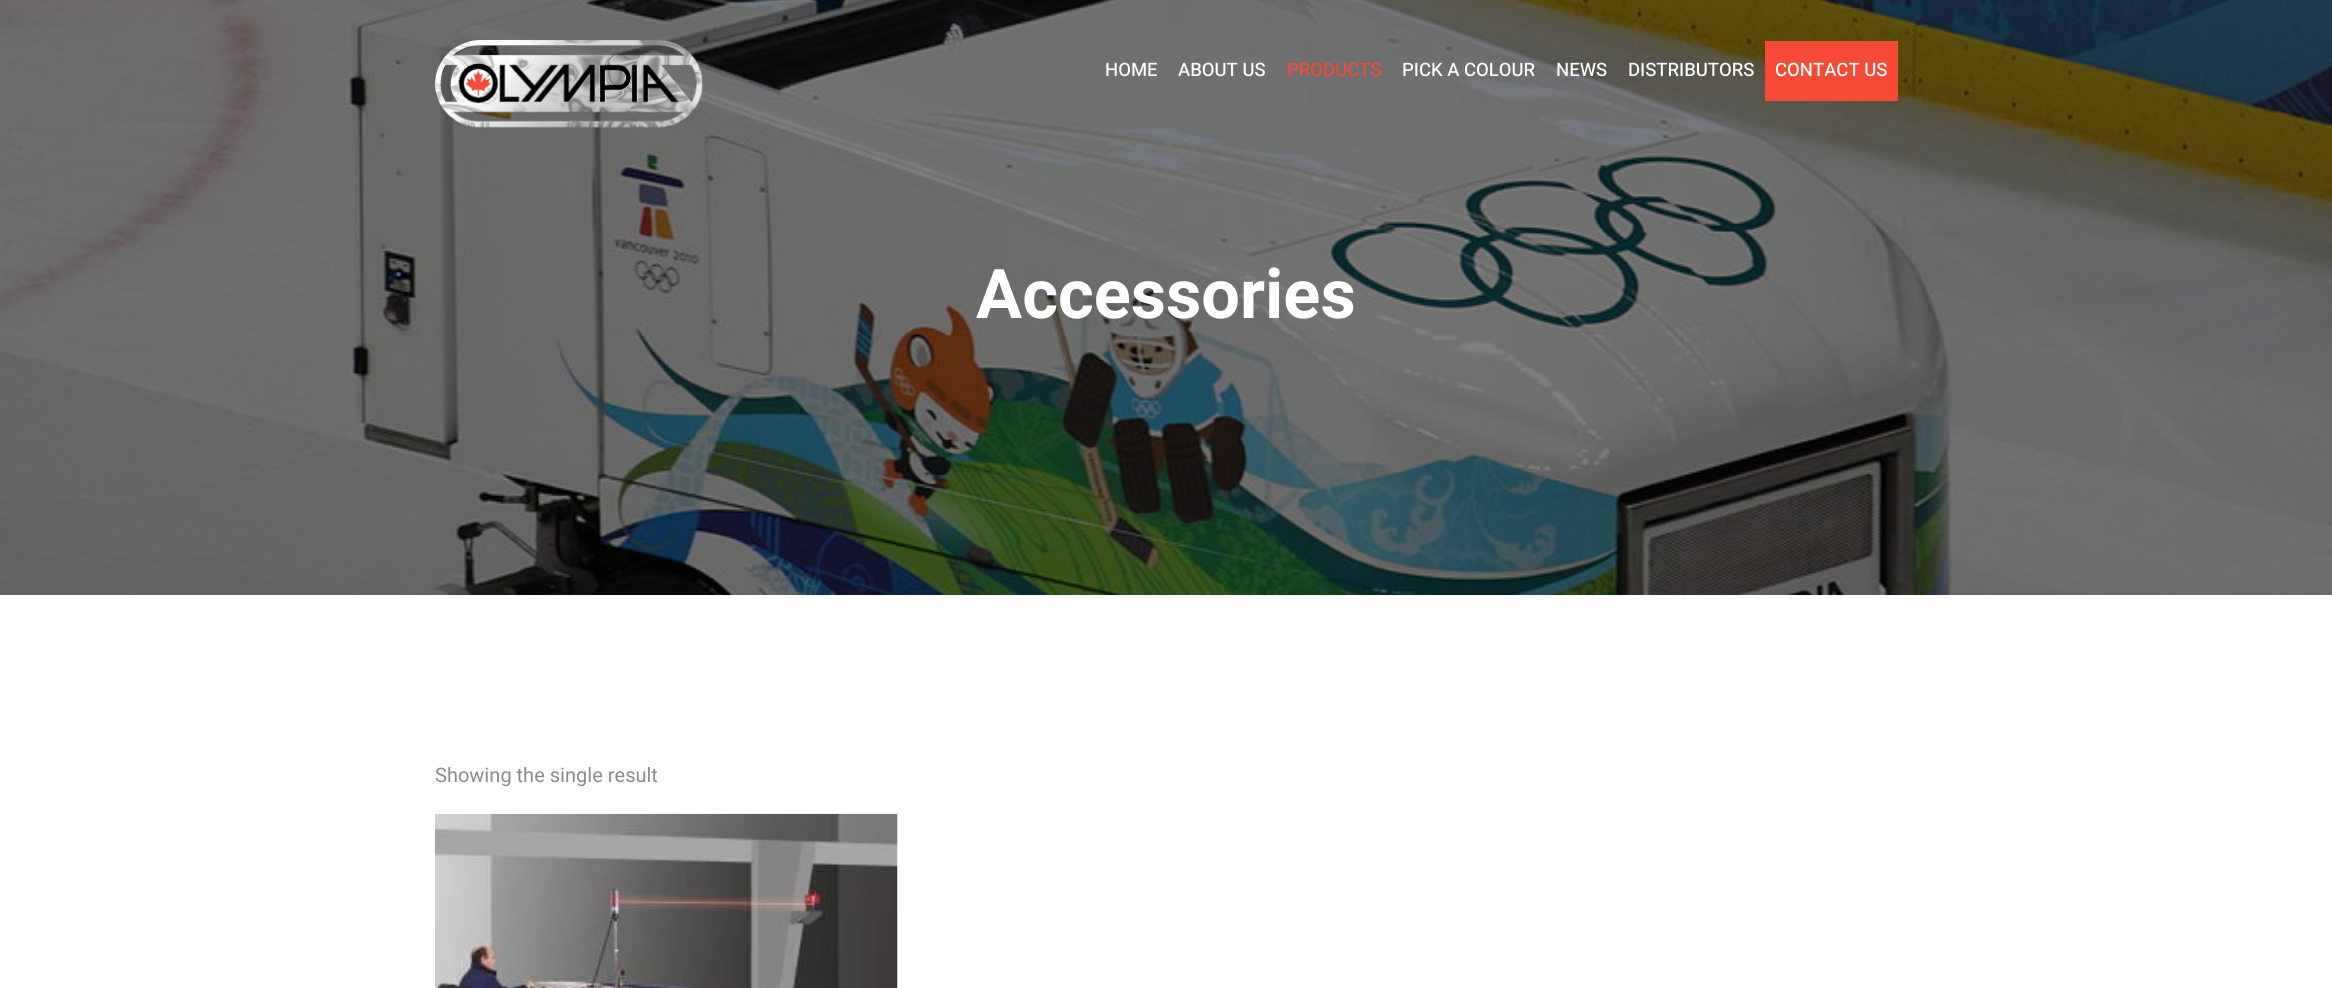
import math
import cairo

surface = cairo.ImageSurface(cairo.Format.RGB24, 2332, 988)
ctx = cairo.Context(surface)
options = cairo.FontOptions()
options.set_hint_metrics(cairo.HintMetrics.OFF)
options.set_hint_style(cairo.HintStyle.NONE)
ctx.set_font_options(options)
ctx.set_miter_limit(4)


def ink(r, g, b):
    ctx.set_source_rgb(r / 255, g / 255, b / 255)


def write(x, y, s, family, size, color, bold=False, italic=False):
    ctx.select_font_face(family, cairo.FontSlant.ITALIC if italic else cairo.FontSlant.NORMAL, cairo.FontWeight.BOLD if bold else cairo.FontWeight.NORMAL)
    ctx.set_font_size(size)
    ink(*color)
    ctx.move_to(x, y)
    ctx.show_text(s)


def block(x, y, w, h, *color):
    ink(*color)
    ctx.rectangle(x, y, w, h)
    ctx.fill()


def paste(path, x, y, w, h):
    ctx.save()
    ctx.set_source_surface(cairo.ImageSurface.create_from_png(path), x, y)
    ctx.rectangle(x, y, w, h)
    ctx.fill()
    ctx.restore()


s1 = dict(family="Heebo Medium", size=18.5, color=(255, 255, 255))
s2 = dict(family="Heebo Medium", size=18.5, color=(246, 74, 54))
s3 = dict(family="Heebo", size=68.5, color=(255, 255, 255), bold=True)
s4 = dict(family="Heebo", size=20, color=(137, 139, 146))

ink(255, 255, 255)
ctx.paint()
paste("pic2.png", 0, 0, 2332, 595)
paste("pic1.png", 435, 40, 268, 88)
write(1105, 76, "HOME", **s1)
write(1178, 76, "ABOUT US", **s1)
write(1287, 76, "PRODUCTS", **s2)
write(1402, 76, "PICK A COLOUR", **s1)
write(1556, 76, "NEWS", **s1)
write(1628, 76, "DISTRIBUTORS", **s1)
block(1765, 41, 133, 60, 246, 74, 54)
write(1775, 76, "CONTACT US", **s1)
write(976, 318, "Accessories", **s3)
write(435, 782, "Showing the single result", **s4)
paste("pic3.png", 435, 813, 463, 175)
surface.write_to_png("screenshot.png")
